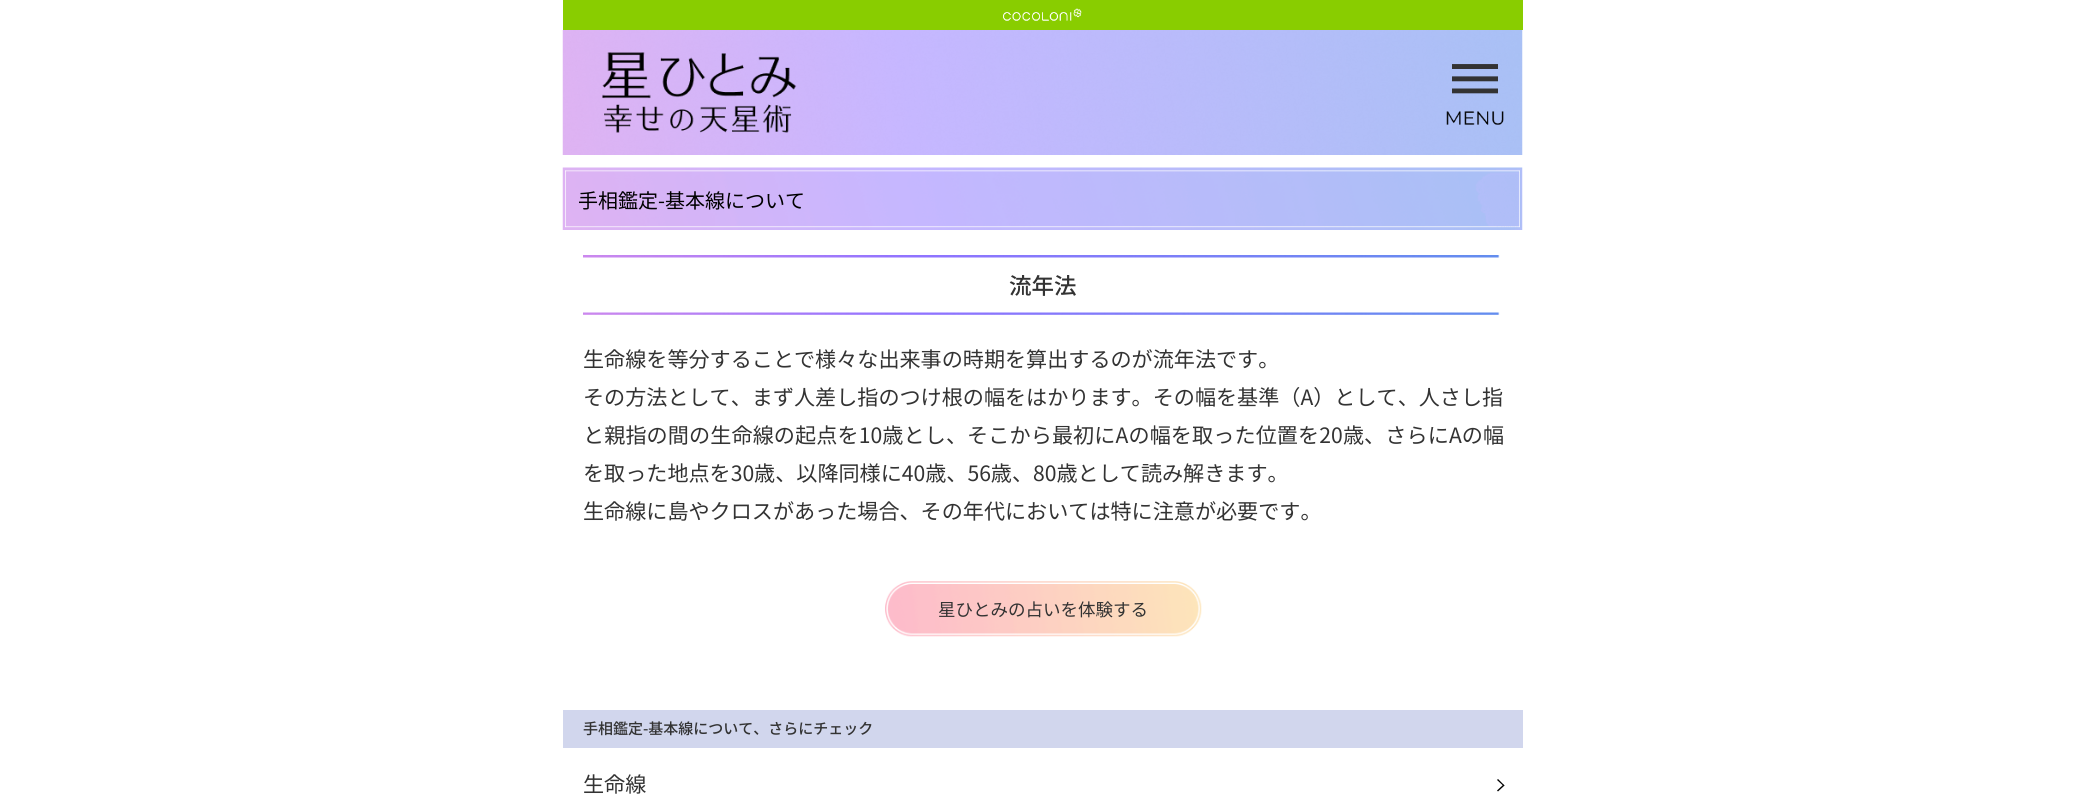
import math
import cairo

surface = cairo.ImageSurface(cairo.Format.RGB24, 2085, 794)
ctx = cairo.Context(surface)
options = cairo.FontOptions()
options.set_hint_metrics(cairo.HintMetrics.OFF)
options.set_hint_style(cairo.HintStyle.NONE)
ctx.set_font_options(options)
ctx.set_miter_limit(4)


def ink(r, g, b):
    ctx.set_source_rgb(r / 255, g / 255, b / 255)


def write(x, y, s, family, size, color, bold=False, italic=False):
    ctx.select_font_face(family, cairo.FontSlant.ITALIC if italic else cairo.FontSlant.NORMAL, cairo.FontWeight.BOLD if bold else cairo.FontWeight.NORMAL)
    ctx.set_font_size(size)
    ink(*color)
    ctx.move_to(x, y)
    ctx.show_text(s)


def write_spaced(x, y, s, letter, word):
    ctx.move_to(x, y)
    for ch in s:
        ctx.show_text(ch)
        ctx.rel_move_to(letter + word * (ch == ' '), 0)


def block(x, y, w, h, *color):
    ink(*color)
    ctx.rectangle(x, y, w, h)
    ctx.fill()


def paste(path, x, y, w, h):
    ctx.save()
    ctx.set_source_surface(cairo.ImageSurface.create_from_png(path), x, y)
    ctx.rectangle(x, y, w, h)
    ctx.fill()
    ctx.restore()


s1 = dict(family="Noto Sans JP", size=20, color=(0, 0, 0))
s2 = dict(family="Noto Sans JP Medium", size=22.5, color=(51, 51, 51))
s3 = dict(family="Noto Sans JP", size=21.1, color=(51, 51, 51))
s4 = dict(family="Noto Sans JP", size=17.5, color=(51, 51, 51))
s5 = dict(family="Noto Sans JP Medium", size=15, color=(51, 51, 51))

ink(255, 255, 255)
ctx.paint()
block(563, 0, 960, 30, 137, 205, 0)
paste("pic1.png", 1003, 8, 79, 13)
paste("pic2.png", 562, 30, 961, 125)
paste("pic3.png", 602, 52, 195, 81)
paste("pic4.png", 1446, 64, 58, 61)
paste("pic5.png", 562, 167, 961, 63)
write(578, 208, "手相鑑定-基本線について", **s1)
paste("pic6.png", 583, 255, 917, 3)
write(1009, 294, "流年法", **s2)
paste("pic7.png", 583, 312, 917, 3)
write(583, 367, "生命線を等分することで様々な出来事の時期を算出するのが流年法です。", **s3)
write(583, 405, "その方法として、まず人差し指のつけ根の幅をはかります。その幅を基準（A）として、人さし指", **s3)
write_spaced(583, 443, "と親指の間の生命線の起点を10歳とし、そこから最初にAの幅を取った位置を20歳、さらにAの幅", 0.1, 0)
write(583, 481, "を取った地点を30歳、以降同様に40歳、56歳、80歳として読み解きます。", **s3)
write(583, 519, "生命線に島やクロスがあった場合、その年代においては特に注意が必要です。", **s3)
paste("pic8.png", 885, 581, 317, 56)
write(938, 616, "星ひとみの占いを体験する", **s4)
block(563, 710, 960, 38, 209, 214, 237)
write(583, 734, "手相鑑定-基本線について、さらにチェック", **s5)
write(583, 792, "生命線", **s3)
ink(0, 0, 0)
ctx.new_path()
ctx.move_to(1497, 780)
ctx.line_to(1498, 779)
ctx.line_to(1504.5, 785.5)
ctx.line_to(1503.5, 786)
ctx.close_path()
ctx.fill()
ctx.new_path()
ctx.move_to(1497, 790.5)
ctx.line_to(1503.5, 784.5)
ctx.line_to(1504.5, 785.5)
ctx.line_to(1498, 791.5)
ctx.close_path()
ctx.fill()
surface.write_to_png("screenshot.png")
